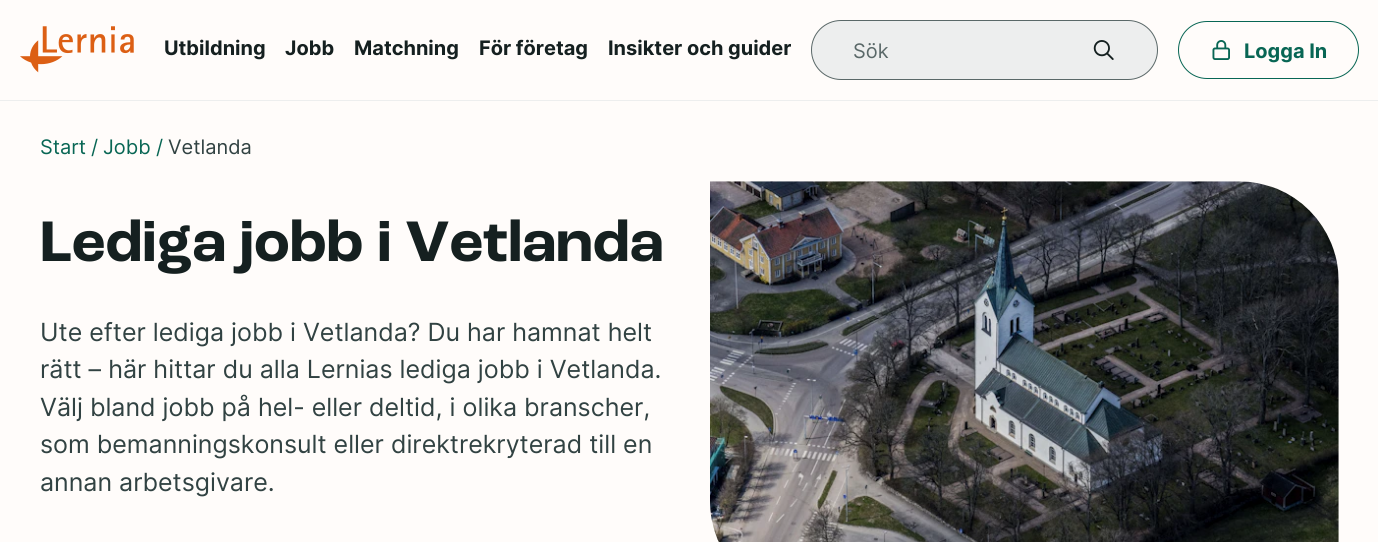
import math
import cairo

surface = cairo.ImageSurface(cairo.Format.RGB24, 1378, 542)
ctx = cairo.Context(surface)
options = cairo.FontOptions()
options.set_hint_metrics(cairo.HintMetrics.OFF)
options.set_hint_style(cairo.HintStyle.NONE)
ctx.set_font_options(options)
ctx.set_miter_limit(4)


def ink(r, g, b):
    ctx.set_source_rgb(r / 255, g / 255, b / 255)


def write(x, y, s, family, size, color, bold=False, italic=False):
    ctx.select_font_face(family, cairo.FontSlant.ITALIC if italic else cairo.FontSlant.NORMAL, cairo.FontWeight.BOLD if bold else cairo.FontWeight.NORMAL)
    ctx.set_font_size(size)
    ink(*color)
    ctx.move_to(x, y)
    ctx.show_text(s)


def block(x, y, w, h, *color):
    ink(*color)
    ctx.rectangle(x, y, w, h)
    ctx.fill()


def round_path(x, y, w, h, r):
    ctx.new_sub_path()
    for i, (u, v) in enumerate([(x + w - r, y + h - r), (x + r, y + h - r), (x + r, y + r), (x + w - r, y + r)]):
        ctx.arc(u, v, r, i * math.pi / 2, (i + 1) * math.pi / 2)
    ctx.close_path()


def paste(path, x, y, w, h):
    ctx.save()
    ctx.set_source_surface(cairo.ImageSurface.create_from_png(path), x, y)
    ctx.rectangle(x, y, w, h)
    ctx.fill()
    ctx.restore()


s1 = dict(family="Inter", size=20, color=(21, 32, 32), bold=True)
s2 = dict(family="Inter", size=20, color=(90, 104, 104))
s3 = dict(family="Inter", size=20, color=(8, 102, 84), bold=True)
s4 = dict(family="Inter", size=20, color=(8, 102, 84))
s5 = dict(family="Inter", size=20, color=(49, 66, 66))
s6 = dict(family="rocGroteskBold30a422", size=60, color=(21, 32, 32), bold=True)
s7 = dict(family="Inter", size=25, color=(49, 66, 66))

ink(255, 252, 250)
ctx.paint()
block(0, 100, 1378, 1, 237, 238, 238)
paste("pic1.png", 20, 26, 114, 47)
write(164, 55, "Utbildning", **s1)
write(285, 55, "Jobb", **s1)
write(354, 55, "Matchning", **s1)
write(479, 55, "För företag", **s1)
write(608, 55, "Insikter och guider", **s1)
ink(237, 238, 238)
round_path(811.5, 20.5, 346, 59, 29.5)
ctx.fill_preserve()
ink(90, 104, 104)
ctx.set_line_width(1)
ctx.stroke()
write(853, 58, "Sök", **s2)
paste("pic2.png", 1093, 40, 21, 20)
round_path(1178.5, 21.5, 180, 57, 28.5)
ink(8, 102, 84)
ctx.stroke()
paste("pic3.png", 1212, 40, 18, 20)
write(1244, 58, "Logga In", **s3)
write(40, 154, "Start", **s4)
write(91, 154, "/", **s4)
write(103, 154, "Jobb", **s4)
write(156, 154, "/", **s4)
write(168, 154, "Vetlanda", **s5)
write(40, 261, "Lediga jobb i Vetlanda", **s6)
write(40, 341, "Ute efter lediga jobb i Vetlanda? Du har hamnat helt", **s7)
write(40, 378, "rätt – här hittar du alla Lernias lediga jobb i Vetlanda.", **s7)
write(40, 416, "Välj bland jobb på hel- eller deltid, i olika branscher,", **s7)
write(40, 453, "som bemanningskonsult eller direktrekryterad till en", **s7)
write(40, 491, "annan arbetsgivare.", **s7)
paste("pic4.png", 710, 181, 629, 361)
surface.write_to_png("screenshot.png")
